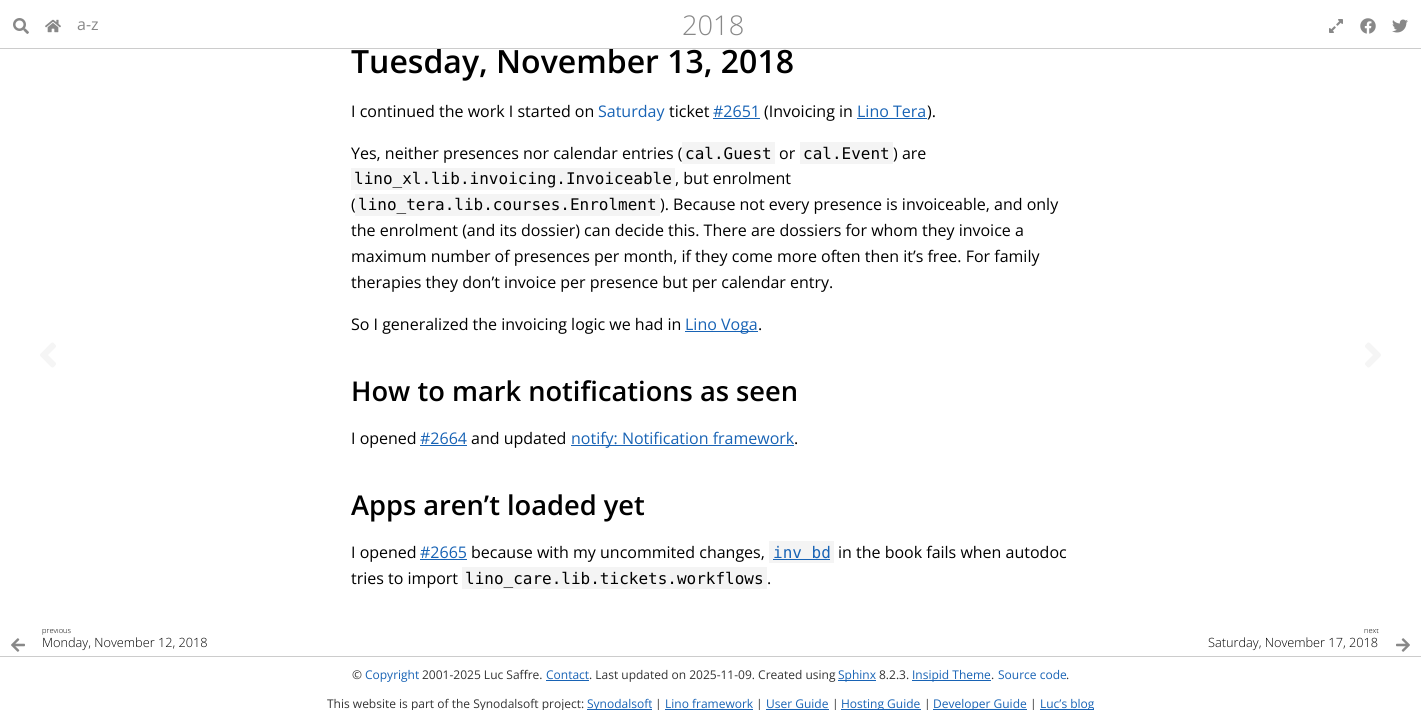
import math
import cairo

surface = cairo.ImageSurface(cairo.Format.RGB24, 1421, 710)
ctx = cairo.Context(surface)
options = cairo.FontOptions()
options.set_hint_metrics(cairo.HintMetrics.OFF)
options.set_hint_style(cairo.HintStyle.NONE)
ctx.set_font_options(options)
ctx.set_miter_limit(4)


def ink(r, g, b):
    ctx.set_source_rgb(r / 255, g / 255, b / 255)


def write(x, y, s, family, size, color, bold=False, italic=False):
    ctx.select_font_face(family, cairo.FontSlant.ITALIC if italic else cairo.FontSlant.NORMAL, cairo.FontWeight.BOLD if bold else cairo.FontWeight.NORMAL)
    ctx.set_font_size(size)
    ink(*color)
    ctx.move_to(x, y)
    ctx.show_text(s)


def block(x, y, w, h, *color):
    ink(*color)
    ctx.rectangle(x, y, w, h)
    ctx.fill()


def paste(path, x, y, w, h):
    ctx.save()
    ctx.set_source_surface(cairo.ImageSurface.create_from_png(path), x, y)
    ctx.rectangle(x, y, w, h)
    ctx.fill()
    ctx.restore()


s1 = dict(family="Open Sans SemiBold", size=32, color=(0, 0, 0))
s2 = dict(family="Open Sans", size=16, color=(136, 136, 136))
s3 = dict(family="Open Sans Light", size=27.25, color=(136, 136, 136))
s4 = dict(family="Open Sans", size=16, color=(0, 0, 0))
s5 = dict(family="Open Sans", size=16, color=(24, 99, 181))
s6 = dict(family="DejaVu Sans Mono", size=16, color=(0, 0, 0))
s7 = dict(family="Open Sans SemiBold", size=27.25, color=(0, 0, 0))
s8 = dict(family="DejaVu Sans Mono", size=16, color=(24, 99, 181))
s9 = dict(family="Open Sans Light", size=7.5, color=(0, 0, 0))
s10 = dict(family="Open Sans Light", size=12.75, color=(0, 0, 0))
s11 = dict(family="Open Sans", size=12, color=(51, 51, 51))
s12 = dict(family="Open Sans", size=12, color=(24, 99, 181))

ink(255, 255, 255)
ctx.paint()
write(351, 73, "Tuesday, November 13, 2018", **s1)
block(0, 48, 1421, 1, 204, 204, 204)
paste("pic1.png", 13, 18, 16, 16)
paste("pic2.png", 45, 19, 16, 14)
write(77, 30, "a-z", **s2)
write(682, 35, "2018", **s3)
paste("pic3.png", 1329, 19, 14, 14)
paste("pic4.png", 1360, 18, 16, 16)
paste("pic5.png", 1392, 19, 16, 14)
write(351, 117, "I continued the work I started on", **s4)
write(598, 117, "Saturday", **s5)
write(669, 117, "ticket", **s4)
write(713, 117, "#2651", **s5)
block(713, 118, 47, 1, 24, 99, 181)
write(764, 117, "(Invoicing in", **s4)
write(857, 117, "Lino Tera", **s5)
block(857, 118, 70, 1, 24, 99, 181)
write(927, 117, ").", **s4)
write(351, 159, "Yes, neither presences nor calendar entries (", **s4)
block(682, 142, 93, 22, 244, 244, 244)
write(685, 159, "cal.Guest", **s6)
write(779, 159, "or", **s4)
block(800, 142, 93, 22, 244, 244, 244)
write(803, 159, "cal.Event", **s6)
write(893, 159, ") are", **s4)
block(351, 168, 324, 22, 244, 244, 244)
write(354, 184, "lino_xl.lib.invoicing.Invoiceable", **s6)
write(675, 184, ", but enrolment", **s4)
write(351, 210, "(", **s4)
block(355, 194, 305, 22, 244, 244, 244)
write(358, 210, "lino_tera.lib.courses.Enrolment", **s6)
write(660, 210, "). Because not every presence is invoiceable, and only", **s4)
write(351, 236, "the enrolment (and its dossier) can decide this. There are dossiers for whom they invoice a", **s4)
write(351, 262, "maximum number of presences per month, if they come more often then it’s free. For family", **s4)
write(351, 288, "therapies they don’t invoice per presence but per calendar entry.", **s4)
write(351, 330, "So I generalized the invoicing logic we had in", **s4)
block(685, 331, 73, 1, 24, 99, 181)
write(685, 330, "Lino Voga", **s5)
write(758, 330, ".", **s4)
write(351, 401, "How to mark notifications as seen", **s7)
write(351, 444, "I opened", **s4)
write(420, 444, "#2664", **s5)
block(420, 445, 47, 1, 24, 99, 181)
write(471, 444, "and updated", **s4)
block(571, 445, 223, 1, 24, 99, 181)
write(571, 444, "notify: Notification framework", **s5)
write(794, 444, ".", **s4)
write(351, 515, "Apps aren’t loaded yet", **s7)
write(351, 558, "I opened", **s4)
write(420, 558, "#2665", **s5)
block(420, 559, 47, 1, 24, 99, 181)
write(471, 558, "because with my uncommited changes,", **s4)
block(769, 541, 65, 22, 244, 244, 244)
write(773, 558, "inv bd", **s8)
block(773, 559, 57, 1, 24, 99, 181)
write(838, 558, "in the book fails when autodoc", **s4)
write(351, 584, "tries to import", **s4)
block(462, 567, 305, 22, 244, 244, 244)
write(465, 584, "lino_care.lib.tickets.workflows", **s6)
write(767, 584, ".", **s4)
paste("pic6.png", 40, 342, 16, 26)
paste("pic7.png", 1365, 342, 16, 26)
paste("pic8.png", 11, 638, 14, 14)
ctx.save()
ctx.rectangle(42, 629, 669, 27)
ctx.clip()
write(42, 633, "previous", **s9)
ctx.restore()
write(42, 647, "Monday, November 12, 2018", **s10)
ctx.save()
ctx.rectangle(711, 629, 668, 27)
ctx.clip()
write(1364, 633, "next", **s9)
ctx.restore()
write(1208, 647, "Saturday, November 17, 2018", **s10)
paste("pic9.png", 1396, 638, 14, 14)
block(0, 656, 1421, 1, 204, 204, 204)
write(352, 679, "©", **s11)
write(365, 679, "Copyright", **s12)
write(422, 679, "2001-2025 Luc Saffre.", **s11)
write(546, 679, "Contact", **s12)
block(546, 680, 43, 1, 24, 99, 181)
write(589, 679, ". Last updated on 2025-11-09. Created using", **s11)
block(838, 680, 38, 1, 24, 99, 181)
write(838, 679, "Sphinx", **s12)
write(879, 679, "8.2.3.", **s11)
block(912, 680, 79, 1, 24, 99, 181)
write(912, 679, "Insipid Theme", **s12)
write(991, 679, ".", **s11)
write(998, 679, "Source code", **s12)
write(1066, 679, ".", **s11)
write(327, 708, "This website is part of the Synodalsoft project:", **s11)
block(587, 709, 65, 1, 24, 99, 181)
write(587, 708, "Synodalsoft", **s12)
write(655, 708, "|", **s11)
write(665, 708, "Lino framework", **s12)
block(665, 709, 88, 1, 24, 99, 181)
write(756, 708, "|", **s11)
write(766, 708, "User Guide", **s12)
block(766, 709, 63, 1, 24, 99, 181)
write(832, 708, "|", **s11)
block(841, 709, 80, 1, 24, 99, 181)
write(841, 708, "Hosting Guide", **s12)
write(924, 708, "|", **s11)
block(933, 709, 94, 1, 24, 99, 181)
write(933, 708, "Developer Guide", **s12)
write(1030, 708, "|", **s11)
block(1040, 709, 54, 1, 24, 99, 181)
write(1040, 708, "Luc’s blog", **s12)
surface.write_to_png("screenshot.png")
